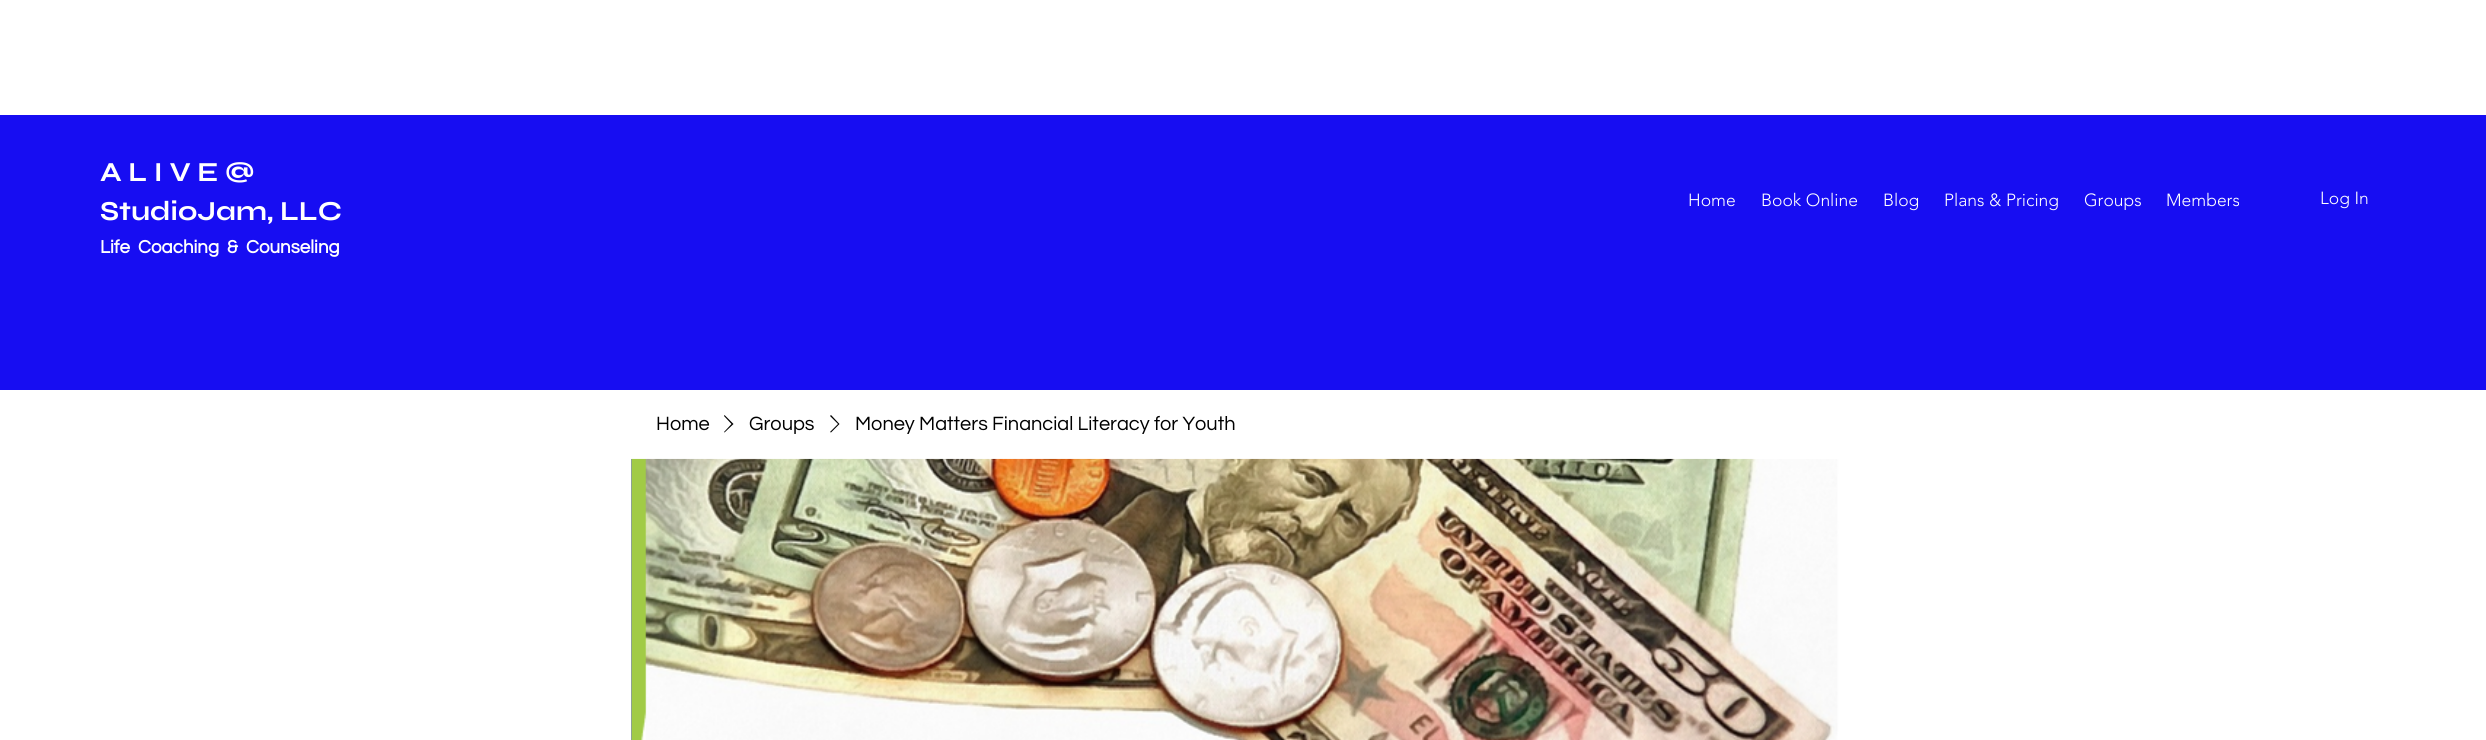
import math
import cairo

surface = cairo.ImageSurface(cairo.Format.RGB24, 2486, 740)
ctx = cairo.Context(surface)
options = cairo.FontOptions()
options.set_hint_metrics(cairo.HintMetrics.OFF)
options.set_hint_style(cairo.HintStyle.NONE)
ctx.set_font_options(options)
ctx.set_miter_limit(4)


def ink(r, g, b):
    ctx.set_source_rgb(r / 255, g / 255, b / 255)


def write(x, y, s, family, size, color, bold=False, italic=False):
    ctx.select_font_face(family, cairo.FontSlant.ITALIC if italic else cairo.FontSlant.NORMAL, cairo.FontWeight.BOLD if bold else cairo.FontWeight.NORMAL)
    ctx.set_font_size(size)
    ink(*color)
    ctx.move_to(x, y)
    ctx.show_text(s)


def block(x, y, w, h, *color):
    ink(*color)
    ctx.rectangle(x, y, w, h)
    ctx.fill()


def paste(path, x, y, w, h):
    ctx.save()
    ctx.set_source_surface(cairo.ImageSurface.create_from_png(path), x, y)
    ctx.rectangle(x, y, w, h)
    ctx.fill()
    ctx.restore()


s1 = dict(family="Syne", size=27.5, color=(255, 255, 255), bold=True)
s2 = dict(family="Questrial", size=18.75, color=(255, 255, 255), bold=True)
s3 = dict(family="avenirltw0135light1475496 Light", size=17.5, color=(255, 255, 255))
s4 = dict(family="Questrial", size=20, color=(0, 0, 0))

ink(255, 255, 255)
ctx.paint()
block(0, 115, 2486, 275, 23, 13, 242)
write(100, 181, "A L I V E @", **s1)
write(100, 220, "StudioJam, LLC", **s1)
write(100, 253, "Life  Coaching  &  Counseling", **s2)
write(1688, 206, "Home", **s3)
write(1761, 206, "Book Online", **s3)
write(1883, 206, "Blog", **s3)
write(1944, 206, "Plans & Pricing", **s3)
write(2084, 206, "Groups", **s3)
write(2166, 206, "Members", **s3)
write(2320, 204, "Log In", **s3)
write(656, 430, "Home", **s4)
ctx.set_fill_rule(cairo.FillRule.EVEN_ODD)
ctx.new_path()
ctx.move_to(724.5, 415)
ctx.line_to(733.5, 424)
ctx.line_to(724.5, 432.5)
ctx.line_to(724, 432)
ctx.line_to(731.5, 424)
ctx.line_to(724, 416)
ctx.close_path()
ctx.fill()
write(749, 430, "Groups", **s4)
ctx.new_path()
ctx.move_to(831, 415)
ctx.line_to(839.5, 424)
ctx.line_to(831, 432.5)
ctx.line_to(830, 432)
ctx.line_to(838, 424)
ctx.line_to(830, 416)
ctx.close_path()
ctx.fill()
write(855, 430, "Money Matters Financial Literacy for Youth", **s4)
block(631, 459, 1, 281, 116, 110, 248)
paste("pic1.png", 631, 458, 1225, 282)
surface.write_to_png("screenshot.png")
